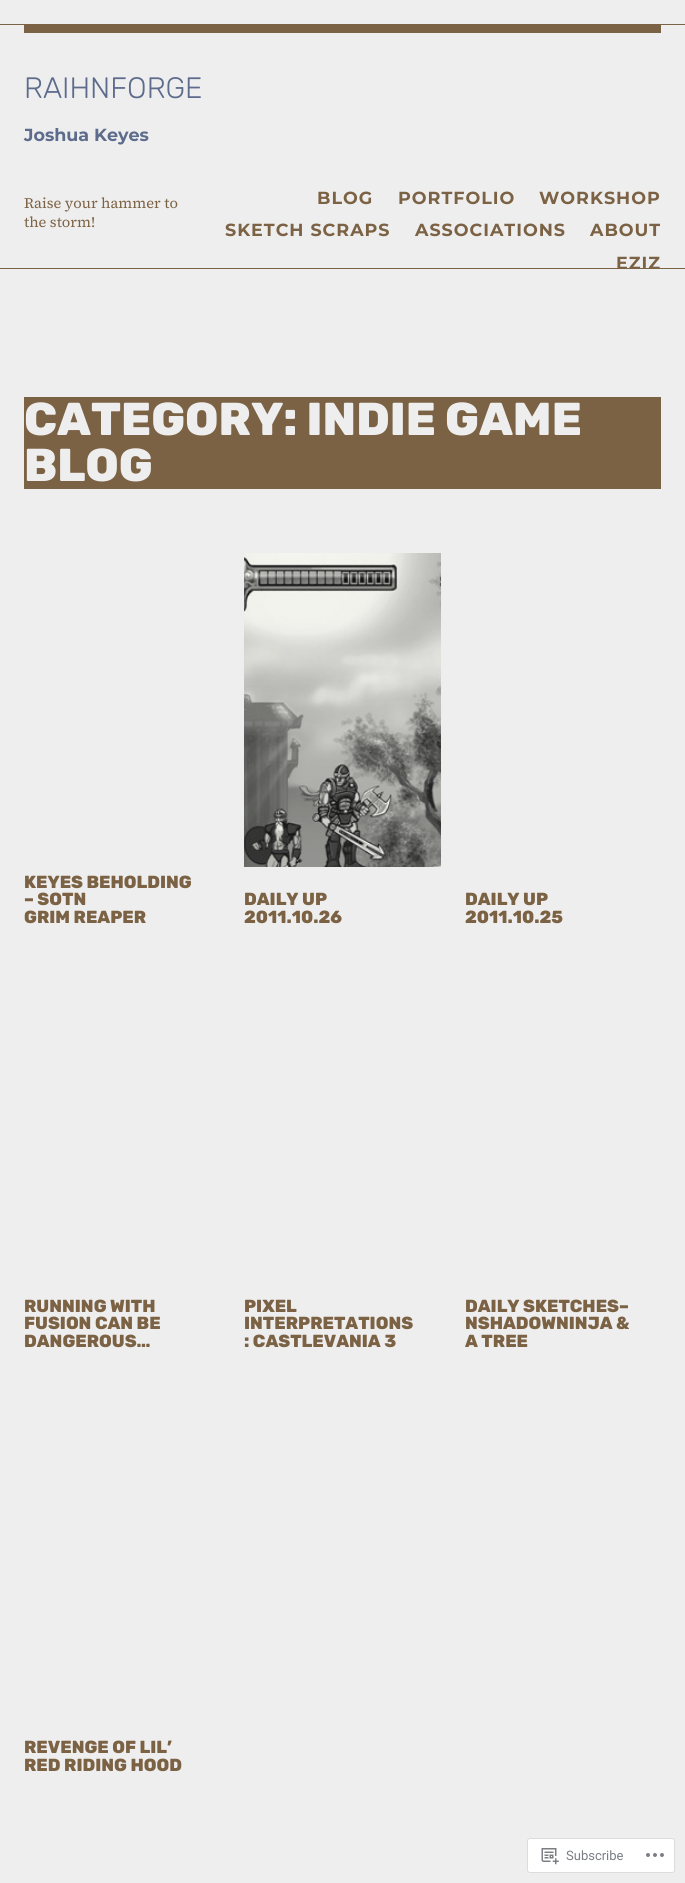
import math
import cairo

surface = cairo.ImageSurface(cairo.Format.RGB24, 685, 1883)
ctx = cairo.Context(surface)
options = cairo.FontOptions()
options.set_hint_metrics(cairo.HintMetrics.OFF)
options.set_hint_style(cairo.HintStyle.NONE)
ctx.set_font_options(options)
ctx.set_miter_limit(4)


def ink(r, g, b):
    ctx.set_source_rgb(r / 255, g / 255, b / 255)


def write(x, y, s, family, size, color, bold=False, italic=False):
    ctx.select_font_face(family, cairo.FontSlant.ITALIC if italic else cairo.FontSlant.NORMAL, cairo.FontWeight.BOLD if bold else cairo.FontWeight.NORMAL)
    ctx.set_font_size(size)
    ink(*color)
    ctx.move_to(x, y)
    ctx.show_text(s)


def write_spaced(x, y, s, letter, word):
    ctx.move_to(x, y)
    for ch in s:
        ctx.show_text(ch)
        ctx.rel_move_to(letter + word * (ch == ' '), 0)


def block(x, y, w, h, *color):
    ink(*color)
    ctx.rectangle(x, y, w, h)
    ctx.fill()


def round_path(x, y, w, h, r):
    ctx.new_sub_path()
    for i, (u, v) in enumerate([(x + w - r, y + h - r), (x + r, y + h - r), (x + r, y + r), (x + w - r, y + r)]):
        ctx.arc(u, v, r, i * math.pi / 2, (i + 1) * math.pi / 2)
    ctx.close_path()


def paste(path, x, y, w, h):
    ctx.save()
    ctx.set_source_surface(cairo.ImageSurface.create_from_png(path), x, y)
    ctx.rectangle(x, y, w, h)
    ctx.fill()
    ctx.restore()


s1 = dict(family="Rubik Light", size=29.5, color=(93, 107, 140))
s2 = dict(family="Montserrat", size=17.5, color=(93, 107, 140), bold=True)
s3 = dict(family="Source Serif 4", size=14.6, color=(124, 98, 68))
s4 = dict(family="Rubik ExtraBold", size=46.1, color=(238, 238, 238))
s5 = dict(family="Rubik ExtraBold", size=17.5, color=(124, 98, 68))
s6 = dict(family="Roboto", size=13, color=(122, 126, 132))

ink(238, 238, 238)
ctx.paint()
block(0, 24, 685, 1, 124, 98, 68)
block(24, 25, 637, 8, 124, 98, 68)
write(24, 98, "RAIHNFORGE", **s1)
write(24, 141, "Joshua Keyes", **s2)
write(24, 208, "Raise your hammer to", **s3)
write(24, 227, "the storm!", **s3)
ctx.select_font_face("Montserrat", cairo.FontSlant.NORMAL, cairo.FontWeight.BOLD)
ctx.set_font_size(17.5)
write_spaced(317, 204, "BLOG", 1, 0)
write_spaced(398, 204, "PORTFOLIO", 1, 0)
write_spaced(539, 204, "WORKSHOP", 1, 0)
write_spaced(225, 236, "SKETCH SCRAPS", 1, 0)
write_spaced(415, 236, "ASSOCIATIONS", 1, 0)
write_spaced(590, 236, "ABOUT", 1, 0)
block(0, 268, 685, 1, 124, 98, 68)
write_spaced(616, 269, "EZIZ", 1, 0)
block(24, 397, 637, 92, 124, 98, 68)
write(24, 435, "CATEGORY: INDIE GAME", **s4)
write(24, 481, "BLOG", **s4)
write(24, 888, "KEYES BEHOLDING", **s5)
write(24, 905, "– SOTN", **s5)
write(24, 923, "GRIM REAPER", **s5)
paste("pic1.png", 244, 553, 197, 314)
write(244, 905, "DAILY UP", **s5)
write(244, 923, "2011.10.26", **s5)
write(465, 905, "DAILY UP", **s5)
write(465, 923, "2011.10.25", **s5)
write(24, 1312, "RUNNING WITH", **s5)
write(24, 1329, "FUSION CAN BE", **s5)
write(24, 1347, "DANGEROUS…", **s5)
write(244, 1312, "PIXEL", **s5)
write(244, 1329, "INTERPRETATIONS", **s5)
write(244, 1347, ": CASTLEVANIA 3", **s5)
write(465, 1312, "DAILY SKETCHES–", **s5)
write(465, 1329, "NSHADOWNINJA &", **s5)
write(465, 1347, "A TREE", **s5)
write(24, 1753, "REVENGE OF LIL’", **s5)
write(24, 1771, "RED RIDING HOOD", **s5)
ink(255, 255, 255)
round_path(527.5, 1838.5, 147, 34, 2.5)
ctx.fill_preserve()
ink(220, 220, 222)
ctx.set_line_width(1)
ctx.stroke()
paste("pic2.png", 541, 1848, 18, 17)
write(566, 1860, "Subscribe", **s6)
paste("pic3.png", 646, 1853, 18, 4)
surface.write_to_png("screenshot.png")
